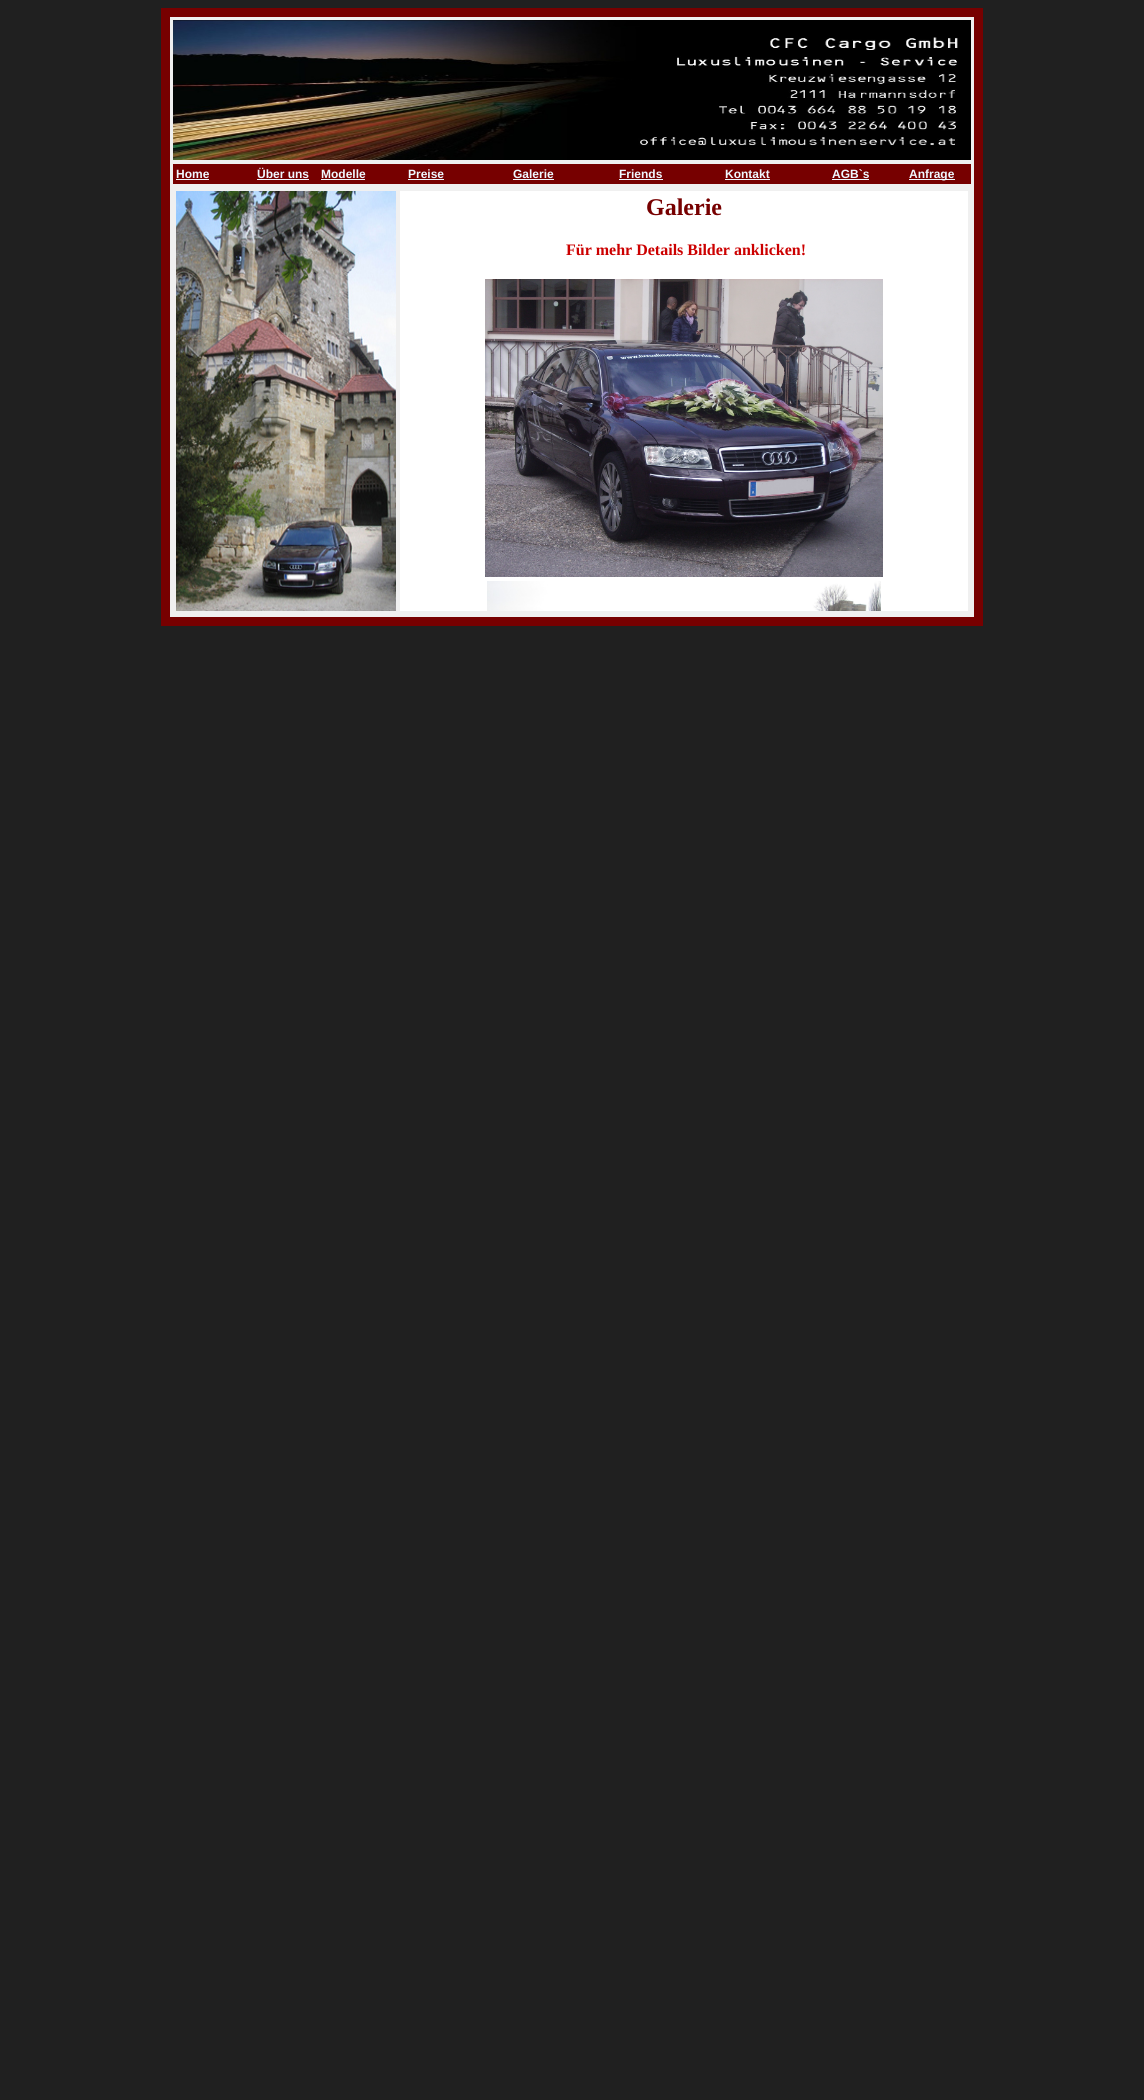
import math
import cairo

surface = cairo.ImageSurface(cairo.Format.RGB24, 1144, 2100)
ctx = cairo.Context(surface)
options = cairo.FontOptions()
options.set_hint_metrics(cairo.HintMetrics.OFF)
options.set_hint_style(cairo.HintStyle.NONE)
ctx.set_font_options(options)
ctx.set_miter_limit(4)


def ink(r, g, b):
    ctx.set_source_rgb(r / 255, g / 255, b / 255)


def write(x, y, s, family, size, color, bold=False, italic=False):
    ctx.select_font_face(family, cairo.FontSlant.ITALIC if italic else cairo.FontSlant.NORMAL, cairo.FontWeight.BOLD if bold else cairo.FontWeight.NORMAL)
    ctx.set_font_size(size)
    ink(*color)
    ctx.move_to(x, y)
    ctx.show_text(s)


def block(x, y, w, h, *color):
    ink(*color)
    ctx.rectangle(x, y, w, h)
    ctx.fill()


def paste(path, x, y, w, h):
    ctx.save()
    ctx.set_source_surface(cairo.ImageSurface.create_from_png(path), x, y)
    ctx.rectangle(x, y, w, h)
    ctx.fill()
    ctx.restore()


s1 = dict(family="Liberation Sans", size=12, color=(240, 248, 255), bold=True)
s2 = dict(family="Liberation Serif", size=24, color=(119, 0, 0), bold=True)
s3 = dict(family="Liberation Serif", size=16, color=(204, 0, 0), bold=True)

ink(32, 32, 32)
ctx.paint()
block(161, 8, 822, 618, 119, 0, 0)
block(170, 17, 804, 600, 240, 240, 240)
paste("pic1.png", 173, 20, 798, 140)
block(173, 164, 798, 20, 119, 0, 0)
write(176, 178, "Home", **s1)
block(176, 179, 33, 1, 240, 248, 255)
write(257, 178, "Über uns", **s1)
block(257, 179, 52, 1, 240, 248, 255)
write(321, 178, "Modelle", **s1)
block(321, 179, 44, 1, 240, 248, 255)
write(408, 178, "Preise", **s1)
block(408, 179, 36, 1, 240, 248, 255)
write(513, 178, "Galerie", **s1)
block(513, 179, 41, 1, 240, 248, 255)
write(619, 178, "Friends", **s1)
block(619, 179, 44, 1, 240, 248, 255)
write(725, 178, "Kontakt", **s1)
block(725, 179, 45, 1, 240, 248, 255)
write(832, 178, "AGB`s", **s1)
block(832, 179, 37, 1, 240, 248, 255)
block(909, 179, 46, 1, 240, 248, 255)
write(909, 178, "Anfrage", **s1)
paste("pic2.png", 176, 191, 220, 420)
block(400, 191, 568, 420, 255, 255, 255)
write(646, 215, "Galerie", **s2)
write(566, 255, "Für mehr Details Bilder anklicken!", **s3)
paste("pic3.png", 485, 279, 398, 298)
paste("pic4.png", 487, 581, 394, 30)
surface.write_to_png("screenshot.png")
